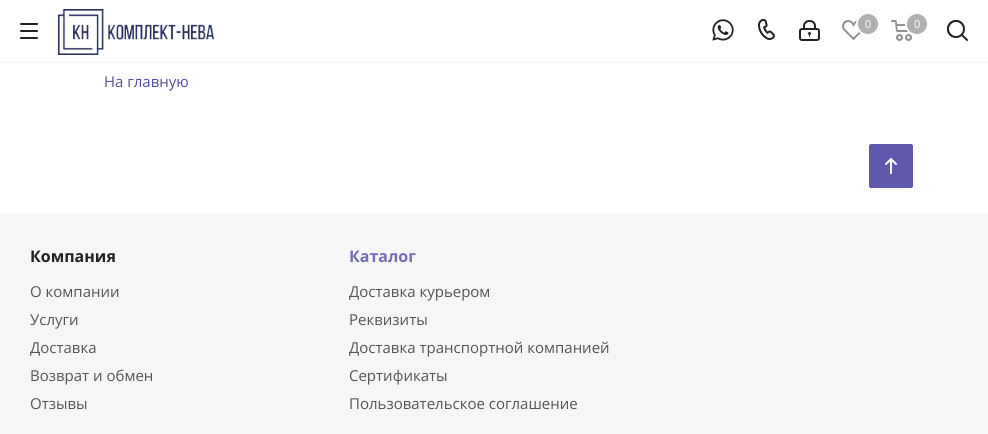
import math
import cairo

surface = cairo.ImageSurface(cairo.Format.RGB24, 988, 434)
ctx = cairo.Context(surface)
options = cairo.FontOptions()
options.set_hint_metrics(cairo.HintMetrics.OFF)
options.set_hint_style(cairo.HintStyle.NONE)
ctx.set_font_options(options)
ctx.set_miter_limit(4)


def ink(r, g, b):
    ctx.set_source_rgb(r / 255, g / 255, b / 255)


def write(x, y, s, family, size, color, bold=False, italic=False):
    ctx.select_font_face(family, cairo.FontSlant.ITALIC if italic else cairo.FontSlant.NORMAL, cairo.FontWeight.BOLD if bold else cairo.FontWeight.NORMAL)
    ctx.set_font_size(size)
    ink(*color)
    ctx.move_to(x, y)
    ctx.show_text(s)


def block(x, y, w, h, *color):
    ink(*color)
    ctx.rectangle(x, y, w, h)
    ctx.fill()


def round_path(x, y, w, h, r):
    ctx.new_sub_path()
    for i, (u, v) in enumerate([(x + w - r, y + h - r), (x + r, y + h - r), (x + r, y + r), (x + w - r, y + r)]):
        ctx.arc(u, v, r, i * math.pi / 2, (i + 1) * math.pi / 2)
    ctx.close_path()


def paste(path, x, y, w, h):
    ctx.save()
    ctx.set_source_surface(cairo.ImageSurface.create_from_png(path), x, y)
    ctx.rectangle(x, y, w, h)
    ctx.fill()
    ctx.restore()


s1 = dict(family="Open Sans", size=11, color=(255, 255, 255))
s2 = dict(family="Open Sans", size=15, color=(83, 77, 158))
s3 = dict(family="Open Sans", size=16, color=(34, 34, 34), bold=True)
s4 = dict(family="Open Sans", size=15, color=(85, 85, 85))
s5 = dict(family="Open Sans", size=16, color=(115, 108, 182), bold=True)

ink(255, 255, 255)
ctx.paint()
block(0, 62, 988, 1, 245, 245, 245)
paste("pic1.png", 20, 23, 18, 16)
paste("pic2.png", 58, 9, 156, 46)
paste("pic3.png", 712, 19, 22, 22)
paste("pic4.png", 758, 19, 17, 21)
paste("pic5.png", 799, 20, 21, 21)
paste("pic6.png", 842, 20, 20, 20)
ctx.arc(868, 24, 11, 0, 2 * math.pi)
ink(255, 255, 255)
ctx.stroke()
ink(176, 176, 176)
ctx.arc(868, 24, 10, 0, 2 * math.pi)
ctx.fill()
write(865, 28, "0", **s1)
paste("pic7.png", 891, 20, 21, 21)
ctx.arc(917, 24, 11, 0, 2 * math.pi)
ctx.stroke()
ink(176, 176, 176)
ctx.arc(917, 24, 10, 0, 2 * math.pi)
ctx.fill()
write(914, 28, "0", **s1)
paste("pic8.png", 947, 20, 21, 21)
write(104, 87, "На главную", **s2)
ink(95, 88, 172)
round_path(869, 144, 44, 44, 2)
ctx.fill()
ctx.new_path()
ctx.move_to(891, 159)
ctx.line_to(891, 173)
ctx.move_to(886, 164)
ctx.line_to(891, 159)
ctx.line_to(896, 164)
ink(255, 255, 255)
ctx.set_line_cap(cairo.LineCap.ROUND)
ctx.set_line_join(cairo.LineJoin.ROUND)
ctx.stroke()
block(0, 213, 988, 221, 246, 246, 247)
write(30, 262, "Компания", **s3)
write(30, 297, "О компании", **s4)
write(30, 325, "Услуги", **s4)
write(30, 353, "Доставка", **s4)
write(30, 381, "Возврат и обмен", **s4)
write(30, 409, "Отзывы", **s4)
write(349, 262, "Каталог", **s5)
write(349, 297, "Доставка курьером", **s4)
write(349, 325, "Реквизиты", **s4)
write(349, 353, "Доставка транспортной компанией", **s4)
write(349, 381, "Сертификаты", **s4)
write(349, 409, "Пользовательское соглашение", **s4)
surface.write_to_png("screenshot.png")
